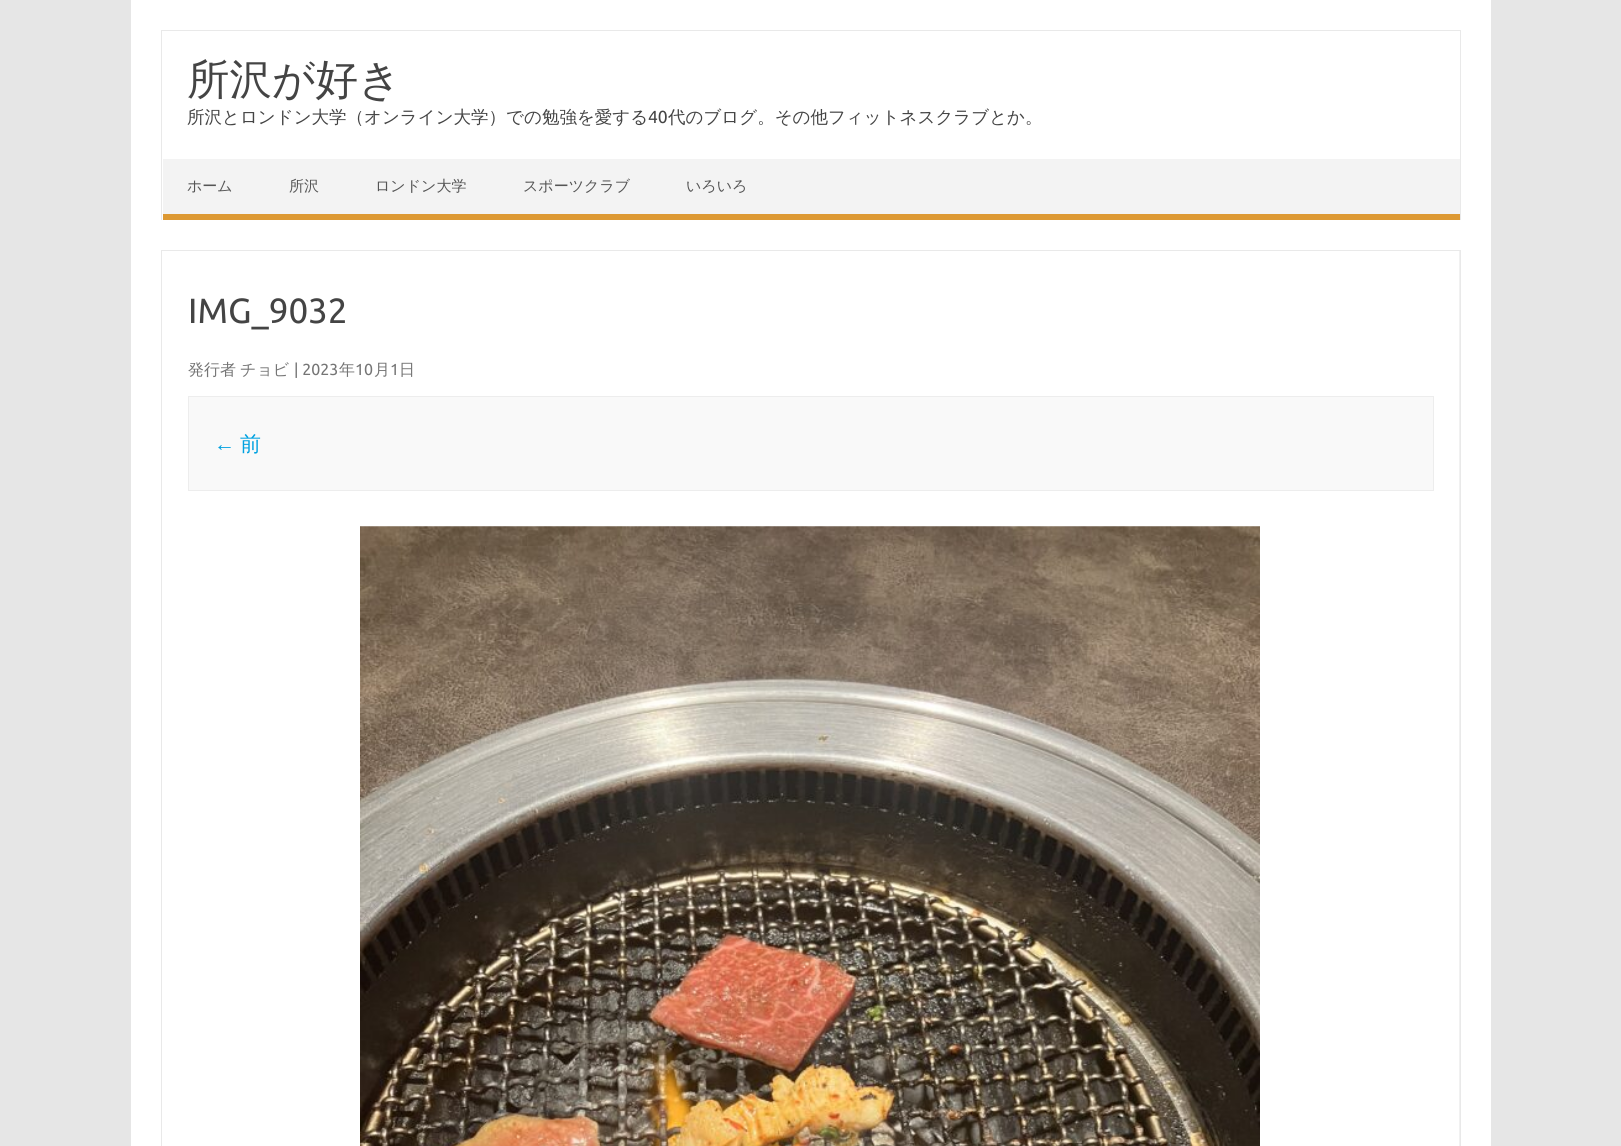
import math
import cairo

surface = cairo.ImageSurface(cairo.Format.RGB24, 1621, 1146)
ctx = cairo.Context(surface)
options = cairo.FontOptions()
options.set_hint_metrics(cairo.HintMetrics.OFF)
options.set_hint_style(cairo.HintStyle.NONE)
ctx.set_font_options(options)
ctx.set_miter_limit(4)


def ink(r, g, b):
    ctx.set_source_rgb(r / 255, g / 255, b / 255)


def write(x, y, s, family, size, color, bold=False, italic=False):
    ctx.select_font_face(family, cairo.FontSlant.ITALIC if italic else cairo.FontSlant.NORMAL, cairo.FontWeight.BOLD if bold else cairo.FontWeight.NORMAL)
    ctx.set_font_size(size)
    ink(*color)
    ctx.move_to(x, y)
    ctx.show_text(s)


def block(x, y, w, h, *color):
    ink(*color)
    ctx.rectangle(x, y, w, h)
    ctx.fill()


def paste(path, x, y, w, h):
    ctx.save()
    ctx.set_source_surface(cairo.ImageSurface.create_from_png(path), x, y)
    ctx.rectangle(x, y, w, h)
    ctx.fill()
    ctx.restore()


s1 = dict(family="WenQuanYi Zen Hei Medium", size=42.5, color=(68, 68, 68))
s2 = dict(family="WenQuanYi Zen Hei Medium", size=17.5, color=(68, 68, 68))
s3 = dict(family="Ubuntu", size=17.5, color=(68, 68, 68))
s4 = dict(family="WenQuanYi Zen Hei Medium", size=15, color=(85, 85, 85))
s5 = dict(family="Ubuntu", size=35, color=(68, 68, 68))
s6 = dict(family="WenQuanYi Zen Hei Medium", size=16, color=(117, 117, 117))
s7 = dict(family="Ubuntu", size=16, color=(117, 117, 117))
s8 = dict(family="Liberation Sans", size=21, color=(0, 161, 224))
s9 = dict(family="WenQuanYi Zen Hei Medium", size=21, color=(0, 161, 224))

ink(230, 230, 230)
ctx.paint()
block(131, 0, 1360, 1146, 255, 255, 255)
block(161, 30, 1300, 1, 233, 233, 233)
block(1460, 30, 1, 190, 233, 233, 233)
block(161, 30, 1, 190, 233, 233, 233)
write(187, 94, "所沢が好き", **s1)
write(187, 123, "所沢とロンドン大学（オンライン大学）での勉強を愛する", **s2)
write(648, 123, "40", **s3)
write(668, 123, "代のブログ。その他フィットネスクラブとか。", **s2)
block(163, 159, 1297, 55, 243, 243, 243)
block(163, 214, 1297, 6, 221, 153, 51)
write(187, 191, "ホーム", **s4)
write(289, 191, "所沢", **s4)
write(375, 191, "ロンドン大学", **s4)
write(523, 191, "スポーツクラブ", **s4)
write(686, 191, "いろいろ", **s4)
ctx.rectangle(161.5, 250.5, 1299, 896)
ink(233, 233, 233)
ctx.set_line_width(1)
ctx.stroke()
block(1459, 251, 1, 895, 241, 241, 241)
write(188, 323, "IMG_9032", **s5)
write(188, 375, "発行者", **s6)
write(240, 375, "チョビ", **s6)
write(294, 375, "| 2023", **s7)
write(339, 375, "年", **s6)
write(355, 375, "10", **s7)
write(374, 375, "月", **s6)
write(390, 375, "1", **s7)
write(399, 375, "日", **s6)
ink(249, 249, 249)
ctx.rectangle(188.5, 396.5, 1245, 94)
ctx.fill_preserve()
ink(237, 237, 237)
ctx.stroke()
write(214, 451, "←", **s8)
write(240, 451, "前", **s9)
paste("pic1.png", 360, 526, 900, 620)
surface.write_to_png("screenshot.png")
